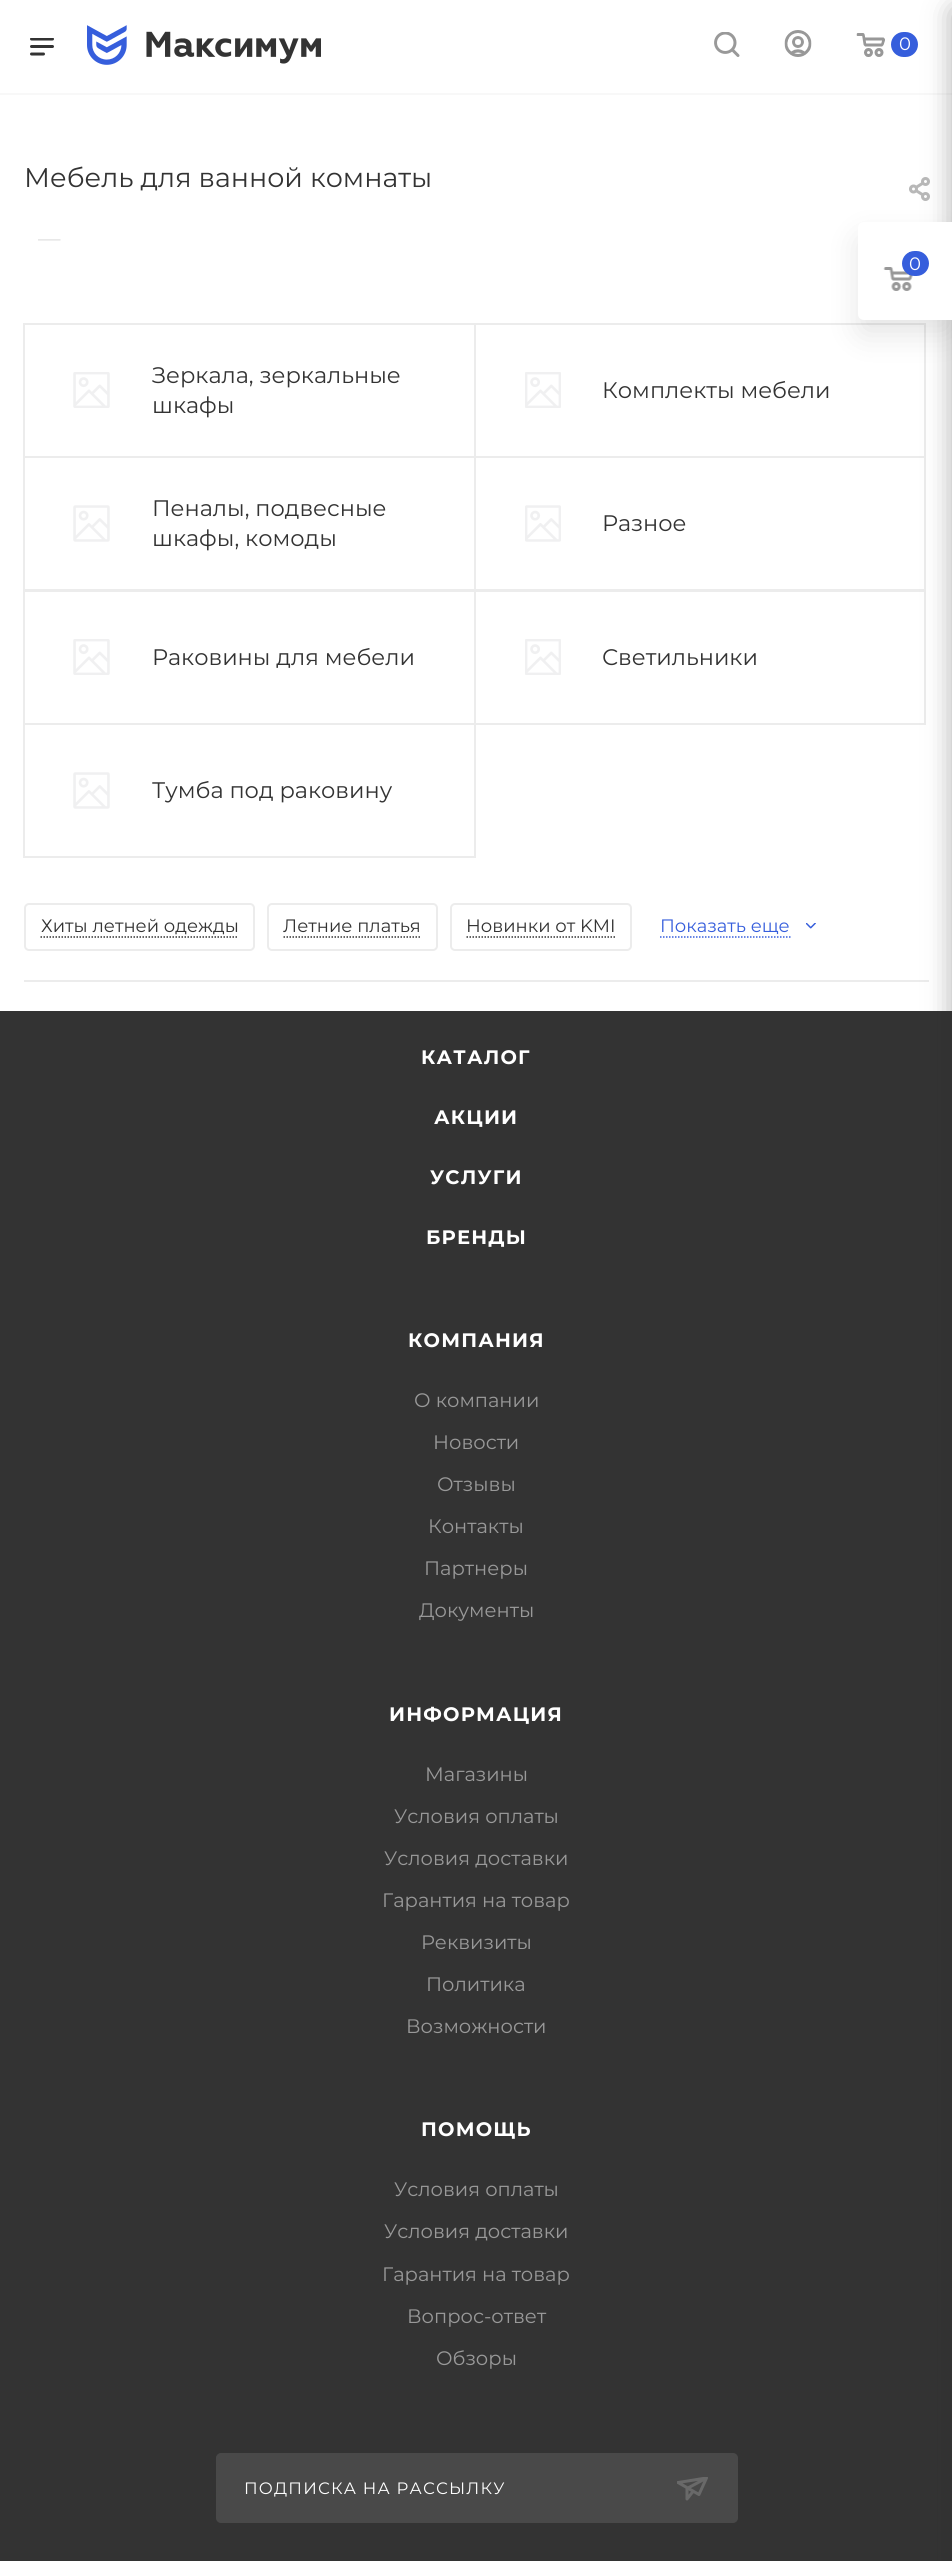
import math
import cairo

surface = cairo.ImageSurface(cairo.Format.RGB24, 952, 2561)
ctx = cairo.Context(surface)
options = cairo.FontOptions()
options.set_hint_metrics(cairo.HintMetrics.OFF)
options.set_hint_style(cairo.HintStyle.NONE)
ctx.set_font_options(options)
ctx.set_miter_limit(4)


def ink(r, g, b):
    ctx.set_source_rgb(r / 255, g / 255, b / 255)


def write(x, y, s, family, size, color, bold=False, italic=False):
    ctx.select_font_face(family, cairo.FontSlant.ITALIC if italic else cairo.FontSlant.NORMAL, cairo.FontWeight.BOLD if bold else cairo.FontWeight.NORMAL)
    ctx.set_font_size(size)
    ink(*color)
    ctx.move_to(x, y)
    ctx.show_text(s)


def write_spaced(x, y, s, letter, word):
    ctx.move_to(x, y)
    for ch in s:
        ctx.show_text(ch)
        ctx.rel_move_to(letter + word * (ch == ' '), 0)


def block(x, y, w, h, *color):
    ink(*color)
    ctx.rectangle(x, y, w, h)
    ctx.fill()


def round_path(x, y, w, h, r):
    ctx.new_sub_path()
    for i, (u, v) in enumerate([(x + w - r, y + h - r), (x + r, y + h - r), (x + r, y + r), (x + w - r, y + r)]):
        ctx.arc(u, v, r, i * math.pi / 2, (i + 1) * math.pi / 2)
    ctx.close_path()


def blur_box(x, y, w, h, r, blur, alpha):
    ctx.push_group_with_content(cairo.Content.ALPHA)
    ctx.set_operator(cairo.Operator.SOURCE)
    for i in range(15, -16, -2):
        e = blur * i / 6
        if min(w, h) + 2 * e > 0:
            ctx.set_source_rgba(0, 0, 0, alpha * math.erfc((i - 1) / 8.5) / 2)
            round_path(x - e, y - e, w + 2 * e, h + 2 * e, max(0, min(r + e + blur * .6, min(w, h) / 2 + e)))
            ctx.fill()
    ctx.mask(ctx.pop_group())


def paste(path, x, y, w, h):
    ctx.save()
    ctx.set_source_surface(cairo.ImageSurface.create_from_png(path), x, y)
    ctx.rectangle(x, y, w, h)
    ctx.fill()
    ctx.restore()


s1 = dict(family="Montserrat", size=18, color=(255, 255, 255))
s2 = dict(family="Montserrat", size=27, color=(51, 51, 51))
s3 = dict(family="Montserrat", size=22.5, color=(221, 221, 221))
s4 = dict(family="Montserrat", size=22.5, color=(51, 51, 51))
s5 = dict(family="Montserrat", size=18, color=(51, 51, 51))
s6 = dict(family="Montserrat", size=18, color=(54, 94, 220))
s7 = dict(family="Montserrat", size=19.5, color=(153, 153, 153))

ink(255, 255, 255)
ctx.paint()
block(0, 93, 952, 2, 248, 248, 248)
paste("pic1.png", 30, 38, 24, 18)
paste("pic2.png", 87, 25, 234, 40)
paste("pic3.png", 714, 32, 26, 25)
paste("pic4.png", 784, 30, 28, 27)
paste("pic5.png", 856, 33, 29, 24)
ink(54, 94, 220)
round_path(891, 32, 27, 25, 12.5)
ctx.fill()
write(899, 50, "0", **s1)
write(24, 187, "Мебель для ванной комнаты", **s2)
paste("pic6.png", 909, 177, 21, 24)
write(38, 246, "—", **s3)
ctx.rectangle(24, 324, 451, 133)
ink(236, 236, 236)
ctx.stroke()
paste("pic7.png", 73, 372, 37, 36)
write(152, 383, "Зеркала, зеркальные", **s4)
write(152, 413, "шкафы", **s4)
ctx.rectangle(475, 324, 450, 133)
ink(236, 236, 236)
ctx.stroke()
paste("pic8.png", 525, 372, 36, 36)
write(602, 398, "Комплекты мебели", **s4)
ctx.rectangle(24, 457, 451, 133)
ink(236, 236, 236)
ctx.stroke()
paste("pic9.png", 73, 505, 37, 37)
write(152, 516, "Пеналы, подвесные", **s4)
write(152, 546, "шкафы, комоды", **s4)
ctx.rectangle(475, 457, 450, 133)
ink(236, 236, 236)
ctx.stroke()
paste("pic10.png", 525, 505, 36, 37)
write(602, 531, "Разное", **s4)
ctx.rectangle(24, 591, 451, 133)
ink(236, 236, 236)
ctx.stroke()
paste("pic7.png", 73, 639, 37, 36)
write(152, 665, "Раковины для мебели", **s4)
ctx.rectangle(475, 591, 450, 133)
ink(236, 236, 236)
ctx.stroke()
paste("pic8.png", 525, 639, 36, 36)
write(602, 665, "Светильники", **s4)
ctx.rectangle(24, 724, 451, 133)
ink(236, 236, 236)
ctx.stroke()
paste("pic9.png", 73, 772, 37, 37)
write(152, 798, "Тумба под раковину", **s4)
block(24, 980, 905, 2, 236, 236, 236)
round_path(25, 904, 229, 46, 4)
ctx.stroke()
write(41, 932, "Хиты летней одежды", **s5)
ctx.new_path()
ctx.move_to(40.5, 937)
ctx.line_to(238.5, 937)
ctx.set_line_width(1.5)
ctx.set_dash([1.5, 1.5])
ctx.stroke()
round_path(268, 904, 169, 46, 4)
ink(236, 236, 236)
ctx.set_line_width(2)
ctx.set_dash([])
ctx.stroke()
write(283, 932, "Летние платья", **s5)
ctx.new_path()
ctx.move_to(283.5, 937)
ctx.line_to(421.5, 937)
ctx.set_line_width(1.5)
ctx.set_dash([1.5, 1.5])
ctx.stroke()
round_path(451, 904, 180, 46, 4)
ink(236, 236, 236)
ctx.set_line_width(2)
ctx.set_dash([])
ctx.stroke()
write(466, 932, "Новинки от KMI", **s5)
ctx.new_path()
ctx.move_to(466.5, 937)
ctx.line_to(615, 937)
ctx.set_line_width(1.5)
ctx.set_dash([1.5, 1.5])
ctx.stroke()
write(660, 932, "Показать еще", **s6)
ctx.new_path()
ctx.move_to(660, 937)
ctx.line_to(790.5, 937)
ctx.stroke()
paste("pic11.png", 806, 923, 10, 6)
block(0, 1011, 952, 1550, 51, 51, 51)
ink(44, 44, 44)
blur_box(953, 9, 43, 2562, 3, 13.5, 0.4)
ink(0, 0, 0)
blur_box(858, 237, 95, 98, 6, 15, 0.1)
ink(255, 255, 255)
ctx.new_path()
ctx.move_to(864, 222)
ctx.line_to(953, 222)
ctx.line_to(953, 320)
ctx.line_to(864, 320)
ctx.curve_to(860.5, 320, 858, 317.5, 858, 314)
ctx.line_to(858, 228)
ctx.curve_to(858, 224.5, 860.5, 222, 864, 222)
ctx.close_path()
ctx.fill()
paste("pic12.png", 883, 267, 30, 24)
ink(54, 94, 220)
round_path(902, 251, 27, 25, 12.5)
ctx.fill()
block(909, 252, 1, 23, 54, 94, 220)
write(909, 270, "0", **s1)
ctx.select_font_face("Montserrat", cairo.FontSlant.NORMAL, cairo.FontWeight.BOLD)
ctx.set_font_size(19.5)
write_spaced(421, 1064, "КАТАЛОГ", 1.2, 0)
write_spaced(434, 1124, "АКЦИИ", 1.2, 0)
write_spaced(430, 1184, "УСЛУГИ", 1.2, 0)
write_spaced(426, 1244, "БРЕНДЫ", 1.2, 0)
write_spaced(408, 1347, "КОМПАНИЯ", 1.2, 0)
write(414, 1407, "О компании", **s7)
write(433, 1449, "Новости", **s7)
write(437, 1491, "Отзывы", **s7)
write(428, 1533, "Контакты", **s7)
write(424, 1575, "Партнеры", **s7)
write(419, 1617, "Документы", **s7)
ctx.select_font_face("Montserrat", cairo.FontSlant.NORMAL, cairo.FontWeight.BOLD)
ink(255, 255, 255)
write_spaced(389, 1721, "ИНФОРМАЦИЯ", 1.2, 0)
write(425, 1781, "Магазины", **s7)
write(394, 1823, "Условия оплаты", **s7)
write(384, 1865, "Условия доставки", **s7)
write(382, 1907, "Гарантия на товар", **s7)
write(421, 1949, "Реквизиты", **s7)
write(426, 1991, "Политика", **s7)
write(406, 2033, "Возможности", **s7)
ctx.select_font_face("Montserrat", cairo.FontSlant.NORMAL, cairo.FontWeight.BOLD)
ink(255, 255, 255)
write_spaced(421, 2136, "ПОМОЩЬ", 1.2, 0)
write(394, 2196, "Условия оплаты", **s7)
write(384, 2238, "Условия доставки", **s7)
write(382, 2281, "Гарантия на товар", **s7)
write(407, 2323, "Вопрос-ответ", **s7)
write(436, 2365, "Обзоры", **s7)
ink(73, 73, 73)
round_path(217, 2454, 520, 68, 4)
ctx.fill_preserve()
ctx.set_line_width(2)
ctx.set_dash([])
ctx.stroke()
ctx.set_font_size(16.5)
ink(255, 255, 255)
write_spaced(244, 2494, "ПОДПИСКА НА РАССЫЛКУ", 1.2, 0)
paste("pic13.png", 677, 2477, 31, 24)
surface.write_to_png("screenshot.png")
